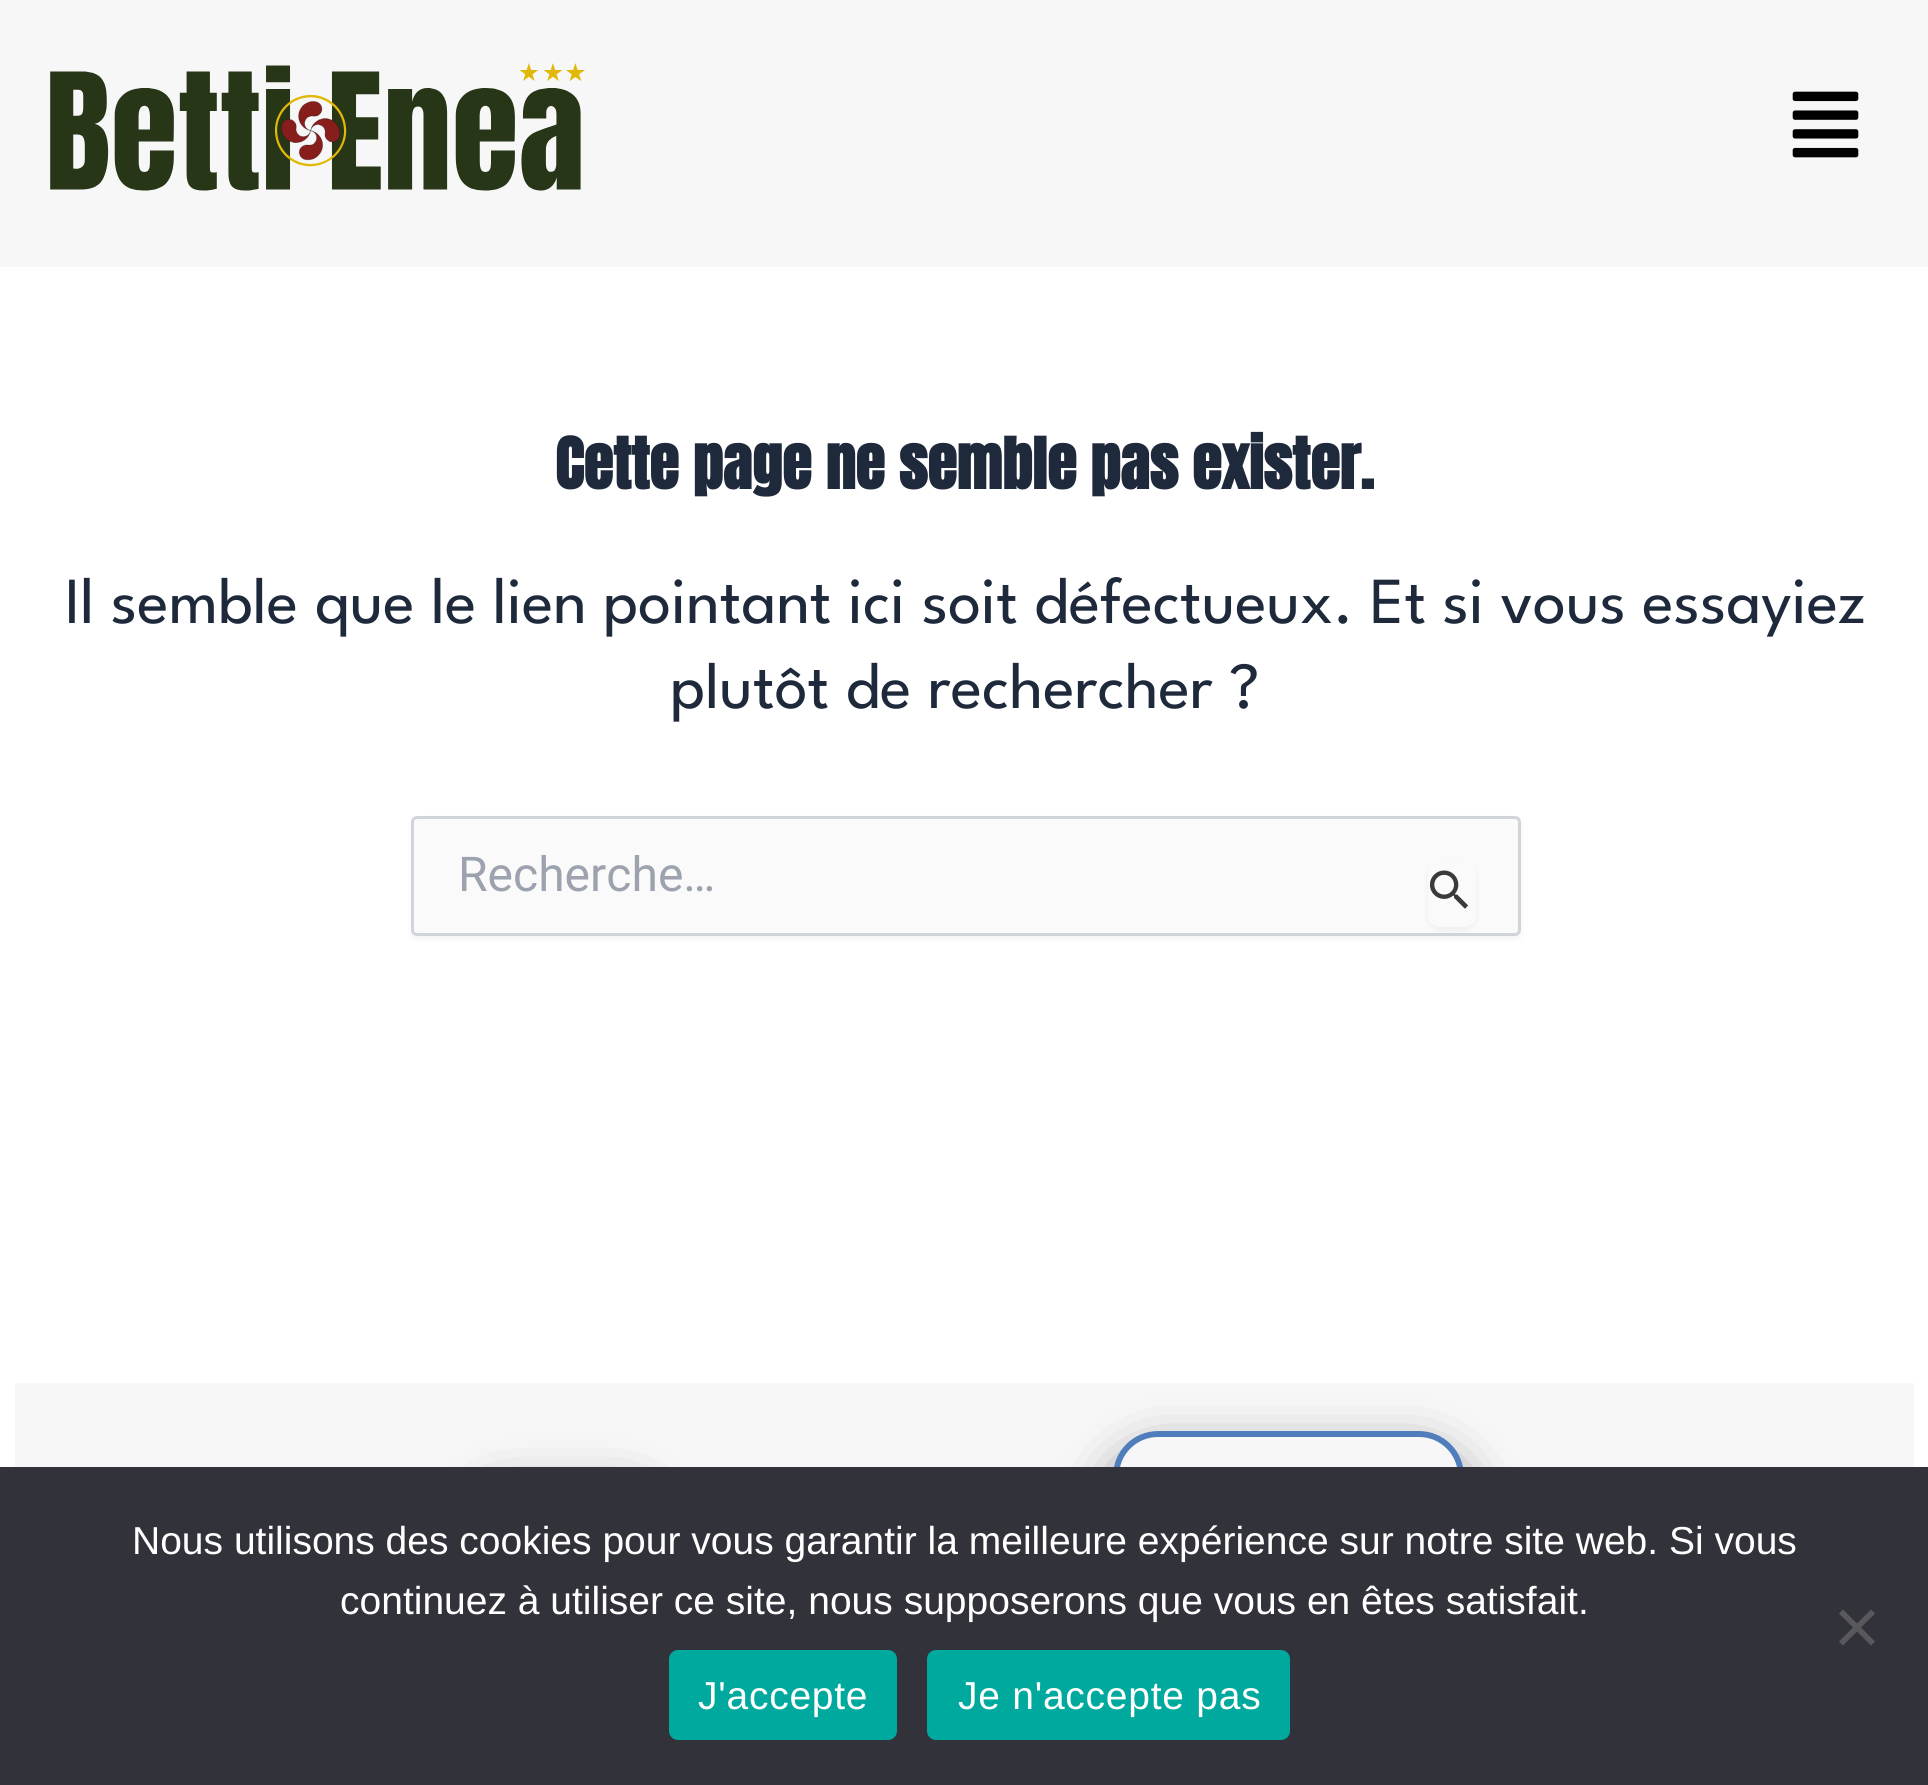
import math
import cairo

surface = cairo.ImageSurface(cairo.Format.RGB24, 1928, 1785)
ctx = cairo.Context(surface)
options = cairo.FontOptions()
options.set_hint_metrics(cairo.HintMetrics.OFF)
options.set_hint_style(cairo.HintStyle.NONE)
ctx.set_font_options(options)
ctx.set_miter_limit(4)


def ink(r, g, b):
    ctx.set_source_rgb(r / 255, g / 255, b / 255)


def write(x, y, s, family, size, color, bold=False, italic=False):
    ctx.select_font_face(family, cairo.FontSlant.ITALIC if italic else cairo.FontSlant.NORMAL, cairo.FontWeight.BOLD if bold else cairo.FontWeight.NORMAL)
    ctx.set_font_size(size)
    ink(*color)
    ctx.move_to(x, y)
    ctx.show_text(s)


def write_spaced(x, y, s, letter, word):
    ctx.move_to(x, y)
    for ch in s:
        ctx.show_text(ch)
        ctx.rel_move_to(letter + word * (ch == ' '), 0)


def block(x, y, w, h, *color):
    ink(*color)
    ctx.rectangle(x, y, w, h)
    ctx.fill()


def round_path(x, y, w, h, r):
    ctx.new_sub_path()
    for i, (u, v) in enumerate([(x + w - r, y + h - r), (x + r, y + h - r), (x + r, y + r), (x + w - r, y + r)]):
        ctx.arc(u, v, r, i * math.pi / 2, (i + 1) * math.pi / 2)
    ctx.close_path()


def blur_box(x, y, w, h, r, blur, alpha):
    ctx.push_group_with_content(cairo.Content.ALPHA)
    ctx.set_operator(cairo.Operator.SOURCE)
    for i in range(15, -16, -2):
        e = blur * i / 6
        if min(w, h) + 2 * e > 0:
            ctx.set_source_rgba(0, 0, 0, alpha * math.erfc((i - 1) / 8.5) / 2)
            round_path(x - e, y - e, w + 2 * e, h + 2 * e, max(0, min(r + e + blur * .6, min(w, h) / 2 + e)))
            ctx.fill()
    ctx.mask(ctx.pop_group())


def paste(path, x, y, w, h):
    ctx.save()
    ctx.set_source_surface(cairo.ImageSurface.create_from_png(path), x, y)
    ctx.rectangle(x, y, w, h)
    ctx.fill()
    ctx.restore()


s1 = dict(family="Anton", size=60, color=(30, 41, 59), bold=True)
s2 = dict(family="League Spartan", size=65.65, color=(30, 41, 59))
s3 = dict(family="Roboto", size=48, color=(156, 163, 175))
s4 = dict(family="Liberation Sans", size=39, color=(255, 255, 255))

ink(255, 255, 255)
ctx.paint()
block(0, 0, 1928, 267, 247, 247, 247)
paste("pic1.png", 50, 63, 535, 128)
paste("pic2.png", 1792, 91, 67, 67)
write(555, 489, "Cette page ne semble pas exister.", **s1)
write(65, 623, "Il semble que le lien pointant ici soit défectueux. Et si vous essayiez", **s2)
write(670, 708, "plutôt de rechercher ?", **s2)
ink(0, 0, 0)
blur_box(411, 819, 1110, 120, 6, 3, 0.05)
ink(250, 250, 250)
round_path(412.5, 817.5, 1107, 117, 4.5)
ctx.fill_preserve()
ink(209, 213, 219)
ctx.set_line_width(3)
ctx.stroke()
write(458, 891, "Recherche…", **s3)
ctx.save()
ctx.set_fill_rule(cairo.FillRule.EVEN_ODD)
ctx.new_path()
ctx.move_to(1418, 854)
ctx.line_to(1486, 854)
ctx.line_to(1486, 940)
ctx.line_to(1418, 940)
ctx.close_path()
ctx.move_to(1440, 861)
ctx.line_to(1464, 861)
ctx.curve_to(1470.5, 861, 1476, 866.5, 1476, 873)
ctx.line_to(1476, 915)
ctx.curve_to(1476, 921.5, 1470.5, 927, 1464, 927)
ctx.line_to(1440, 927)
ctx.curve_to(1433.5, 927, 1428, 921.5, 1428, 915)
ctx.line_to(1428, 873)
ctx.curve_to(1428, 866.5, 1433.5, 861, 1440, 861)
ctx.close_path()
ctx.clip()
ink(0, 0, 0)
blur_box(1428, 864, 48, 66, 12, 3, 0.05)
ctx.restore()
paste("pic3.png", 1429, 870, 40, 39)
block(15, 1383, 1899, 84, 247, 247, 247)
ink(0, 0, 0)
blur_box(459, 1497, 213, 210, 51, 27, 0.5)
ctx.save()
ctx.set_fill_rule(cairo.FillRule.EVEN_ODD)
ctx.new_path()
ctx.move_to(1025, 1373)
ctx.line_to(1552, 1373)
ctx.line_to(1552, 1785)
ctx.line_to(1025, 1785)
ctx.close_path()
ctx.move_to(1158, 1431)
ctx.line_to(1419, 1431)
ctx.curve_to(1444, 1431, 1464, 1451, 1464, 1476)
ctx.line_to(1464, 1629)
ctx.curve_to(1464, 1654, 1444, 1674, 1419, 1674)
ctx.line_to(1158, 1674)
ctx.curve_to(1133, 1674, 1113, 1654, 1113, 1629)
ctx.line_to(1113, 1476)
ctx.curve_to(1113, 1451, 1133, 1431, 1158, 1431)
ctx.close_path()
ctx.clip()
blur_box(1107, 1455, 363, 255, 51, 27, 0.5)
ctx.restore()
round_path(1116, 1434, 345, 237, 42)
ink(80, 125, 188)
ctx.set_line_width(6)
ctx.stroke()
block(0, 1467, 1928, 318, 50, 50, 58)
write(132, 1554, "Nous utilisons des cookies pour vous garantir la meilleure expérience sur notre site web. Si vous", **s4)
write(340, 1614, "continuez à utiliser ce site, nous supposerons que vous en êtes satisfait.", **s4)
ink(89, 89, 93)
ctx.new_path()
ctx.move_to(1871, 1609.5)
ctx.line_to(1875, 1613.5)
ctx.line_to(1843, 1645.5)
ctx.line_to(1839, 1641.5)
ctx.close_path()
ctx.fill()
ctx.new_path()
ctx.move_to(1839, 1613.5)
ctx.line_to(1843, 1609.5)
ctx.line_to(1875, 1641.5)
ctx.line_to(1871, 1645.5)
ctx.close_path()
ctx.fill()
ink(0, 169, 157)
round_path(669, 1650, 228, 90, 9)
ctx.fill()
ink(255, 255, 255)
write_spaced(698, 1709, "J'accepte", 0.75, 0)
ink(0, 169, 157)
round_path(927, 1650, 363, 90, 9)
ctx.fill()
ink(255, 255, 255)
write_spaced(958, 1709, "Je n'accepte pas", 0.75, 0)
surface.write_to_png("screenshot.png")
